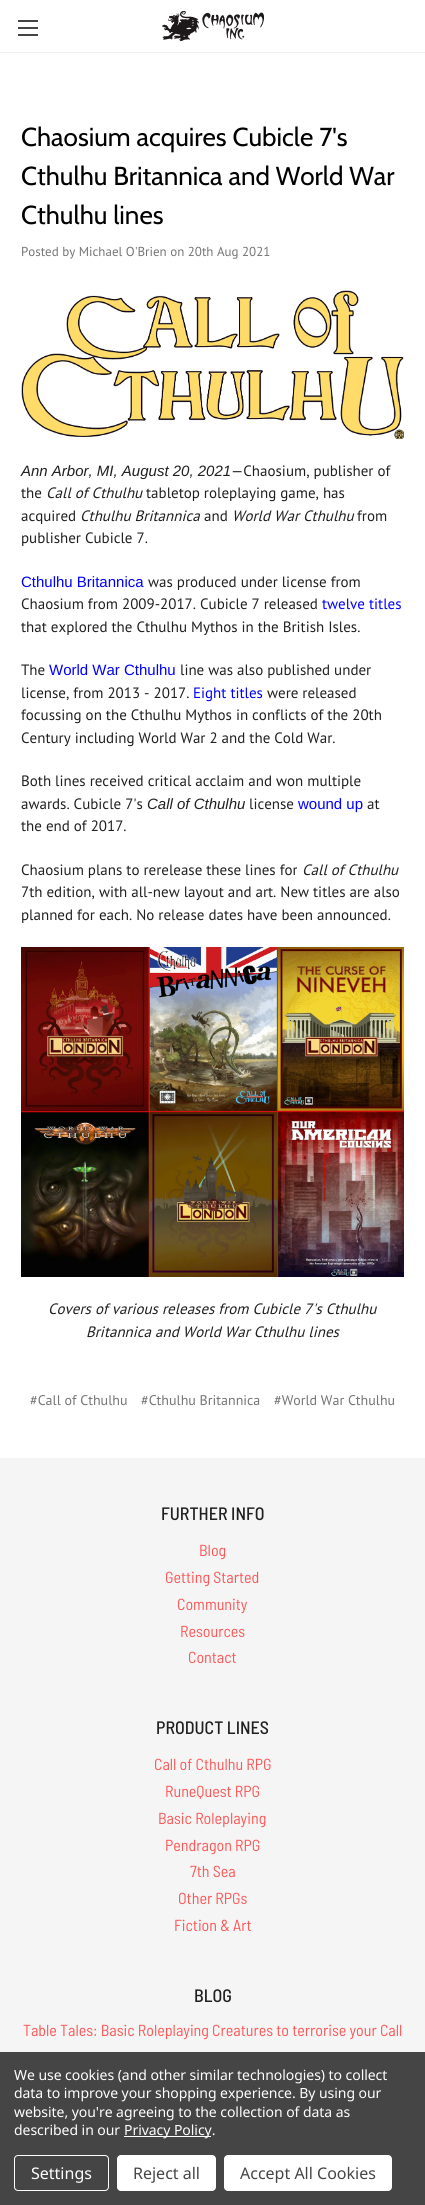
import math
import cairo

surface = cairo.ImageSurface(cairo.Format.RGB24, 425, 2205)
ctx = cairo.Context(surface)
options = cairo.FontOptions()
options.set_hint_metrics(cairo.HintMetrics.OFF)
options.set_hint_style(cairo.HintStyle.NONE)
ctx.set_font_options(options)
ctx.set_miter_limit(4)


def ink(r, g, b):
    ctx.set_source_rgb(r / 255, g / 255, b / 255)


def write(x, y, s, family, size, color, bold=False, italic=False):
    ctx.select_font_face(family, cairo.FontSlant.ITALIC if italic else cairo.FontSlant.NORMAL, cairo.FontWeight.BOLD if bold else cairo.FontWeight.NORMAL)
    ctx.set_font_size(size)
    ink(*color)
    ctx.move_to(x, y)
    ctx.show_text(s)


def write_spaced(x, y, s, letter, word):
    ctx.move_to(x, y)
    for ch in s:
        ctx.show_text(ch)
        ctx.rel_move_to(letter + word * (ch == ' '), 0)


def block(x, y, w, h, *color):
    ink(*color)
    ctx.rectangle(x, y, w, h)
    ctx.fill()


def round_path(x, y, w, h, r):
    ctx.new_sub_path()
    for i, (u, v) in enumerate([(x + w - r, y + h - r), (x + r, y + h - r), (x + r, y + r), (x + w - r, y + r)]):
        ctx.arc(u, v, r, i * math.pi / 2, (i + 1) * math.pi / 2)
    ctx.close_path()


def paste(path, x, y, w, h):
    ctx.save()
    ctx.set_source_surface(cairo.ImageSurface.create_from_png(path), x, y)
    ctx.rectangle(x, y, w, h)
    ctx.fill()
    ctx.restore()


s1 = dict(family="Cabin", size=26, color=(0, 0, 0))
s2 = dict(family="PT Sans", size=13, color=(117, 117, 117))
s3 = dict(family="Liberation Sans", size=15, color=(32, 32, 32), italic=True)
s4 = dict(family="PT Sans", size=15, color=(32, 32, 32))
s5 = dict(family="PT Sans", size=15, color=(32, 32, 32), italic=True)
s6 = dict(family="Liberation Sans", size=15, color=(0, 0, 255))
s7 = dict(family="PT Sans", size=15, color=(0, 0, 255))
s8 = dict(family="PT Sans", size=14, color=(117, 117, 117))
s9 = dict(family="Barlow Semi Condensed Medium", size=18, color=(32, 32, 32))
s10 = dict(family="Barlow Semi Condensed", size=16, color=(253, 87, 87))
s11 = dict(family="Noto Sans", size=16, color=(255, 255, 255))
s12 = dict(family="Noto Sans", size=16, color=(69, 69, 69))

ink(255, 255, 255)
ctx.paint()
block(0, 52, 425, 1, 238, 238, 238)
block(18, 27, 20, 2, 68, 68, 68)
block(18, 20, 20, 2, 68, 68, 68)
block(18, 34, 20, 2, 68, 68, 68)
paste("pic1.png", 162, 11, 102, 30)
write(21, 146, "Chaosium acquires Cubicle 7's", **s1)
write(21, 185, "Cthulhu Britannica and World War", **s1)
write(21, 224, "Cthulhu lines", **s1)
write(21, 256, "Posted by Michael O'Brien on 20th Aug 2021", **s2)
paste("pic2.png", 21, 290, 383, 149)
write(21, 476, "Ann Arbor, MI, August 20, 2021", **s3)
write(231, 476, "—Chaosium, publisher of", **s4)
write(21, 498, "the", **s4)
write(46, 498, "Call of Cthulhu", **s5)
write(146, 498, "tabletop roleplaying game, has", **s4)
write(21, 521, "acquired", **s4)
write(80, 521, "Cthulhu Britannica", **s5)
write(204, 521, "and", **s4)
write(232, 521, "World War Cthulhu", **s5)
write(357, 521, "from", **s4)
write(21, 543, "publisher Cubicle 7.", **s4)
write(21, 587, "Cthulhu Britannica", **s6)
write(148, 587, "was produced under license from", **s4)
write(21, 609, "Chaosium from 2009-2017. Cubicle 7 released", **s4)
write(322, 609, "twelve titles", **s7)
write(21, 632, "that explored the Cthulhu Mythos in the British Isles.", **s4)
write(21, 675, "The", **s4)
write(49, 675, "World War Cthulhu", **s6)
write(180, 675, "line was also published under", **s4)
write(21, 698, "license, from 2013 - 2017.", **s4)
write(193, 698, "Eight titles", **s7)
write(267, 698, "were released", **s4)
write(21, 720, "focussing on the Cthulhu Mythos in conflicts of the 20th", **s4)
write(21, 743, "Century including World War 2 and the Cold War.", **s4)
write(21, 786, "Both lines received critical acclaim and won multiple", **s4)
write(21, 809, "awards. Cubicle 7's", **s4)
write(147, 809, "Call of Cthulhu", **s3)
write(249, 809, "license", **s4)
write(298, 809, "wound up", **s6)
write(367, 809, "at", **s4)
write(21, 831, "the end of 2017.", **s4)
write(21, 875, "Chaosium plans to rerelease these lines for", **s4)
write(302, 875, "Call of Cthulhu", **s5)
write(21, 897, "7th edition, with all-new layout and art. New titles are also", **s4)
write(21, 920, "planned for each. No release dates have been announced.", **s4)
paste("pic3.png", 21, 947, 383, 330)
write(48, 1314, "Covers of various releases from Cubicle 7's Cthulhu", **s5)
write(86, 1337, "Britannica and World War Cthulhu lines", **s5)
write(30, 1405, "#Call of Cthulhu", **s8)
write(141, 1405, "#Cthulhu Britannica", **s8)
write(274, 1405, "#World War Cthulhu", **s8)
block(0, 1458, 425, 594, 245, 245, 245)
write(161, 1520, "FURTHER INFO", **s9)
write(199, 1556, "Blog", **s10)
write(165, 1583, "Getting Started", **s10)
write(177, 1610, "Community", **s10)
write(180, 1637, "Resources", **s10)
write(188, 1663, "Contact", **s10)
write(156, 1734, "PRODUCT LINES", **s9)
write(154, 1770, "Call of Cthulhu RPG", **s10)
write(165, 1797, "RuneQuest RPG", **s10)
write(158, 1824, "Basic Roleplaying", **s10)
write(165, 1851, "Pendragon RPG", **s10)
write(190, 1877, "7th Sea", **s10)
write(178, 1904, "Other RPGs", **s10)
write(174, 1931, "Fiction & Art", **s10)
write(194, 2002, "BLOG", **s9)
write(23, 2036, "Table Tales: Basic Roleplaying Creatures to terrorise your Call", **s10)
block(0, 2052, 425, 153, 69, 69, 69)
ctx.select_font_face("Noto Sans")
ctx.set_font_size(14)
ink(255, 255, 255)
write_spaced(14, 2080, "We use cookies (and other similar technologies) to collect", -0.05, 0)
write_spaced(14, 2098, "data to improve your shopping experience. By using our", -0.05, 0)
write_spaced(14, 2117, "website, you're agreeing to the collection of data as", -0.05, 0)
write_spaced(14, 2135, "described in our", -0.05, 0)
block(124, 2136, 87, 1, 255, 255, 255)
write_spaced(124, 2135, "Privacy Policy.", -0.05, 0)
round_path(14.5, 2155.5, 94, 35, 3.5)
ctx.set_line_width(1)
ctx.stroke()
write(31, 2179, "Settings", **s11)
round_path(117, 2155, 99, 36, 4)
ctx.fill()
write(133, 2179, "Reject all", **s12)
ink(255, 255, 255)
round_path(224, 2155, 168, 36, 4)
ctx.fill()
write(240, 2179, "Accept All Cookies", **s12)
surface.write_to_png("screenshot.png")
